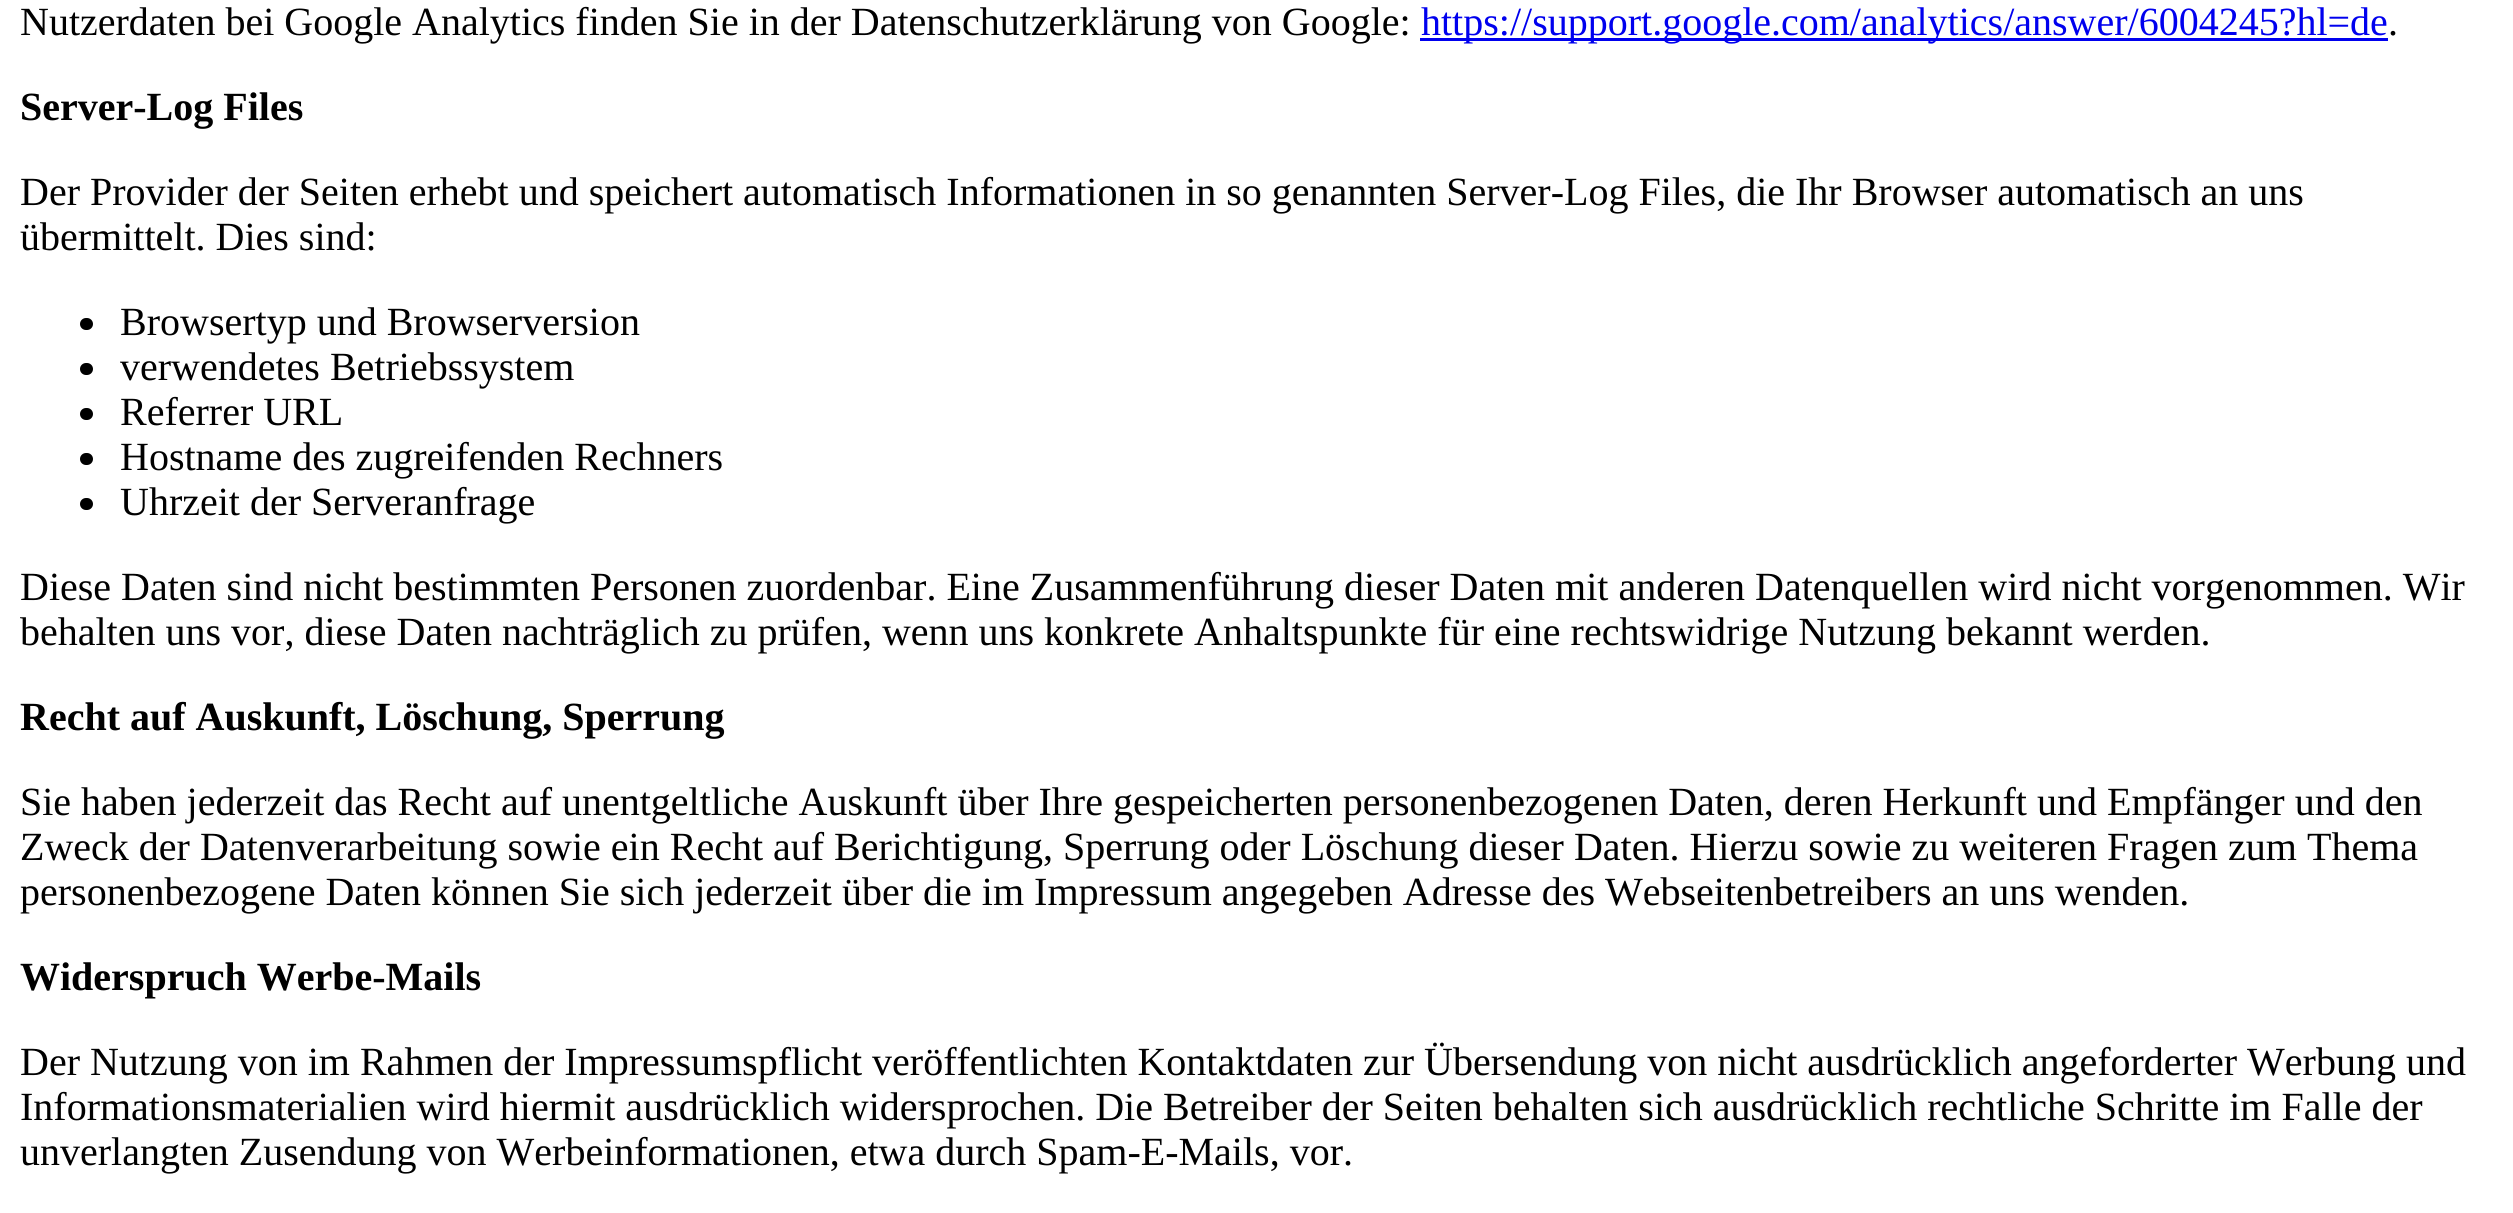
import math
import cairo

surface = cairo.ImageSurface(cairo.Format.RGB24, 2513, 1213)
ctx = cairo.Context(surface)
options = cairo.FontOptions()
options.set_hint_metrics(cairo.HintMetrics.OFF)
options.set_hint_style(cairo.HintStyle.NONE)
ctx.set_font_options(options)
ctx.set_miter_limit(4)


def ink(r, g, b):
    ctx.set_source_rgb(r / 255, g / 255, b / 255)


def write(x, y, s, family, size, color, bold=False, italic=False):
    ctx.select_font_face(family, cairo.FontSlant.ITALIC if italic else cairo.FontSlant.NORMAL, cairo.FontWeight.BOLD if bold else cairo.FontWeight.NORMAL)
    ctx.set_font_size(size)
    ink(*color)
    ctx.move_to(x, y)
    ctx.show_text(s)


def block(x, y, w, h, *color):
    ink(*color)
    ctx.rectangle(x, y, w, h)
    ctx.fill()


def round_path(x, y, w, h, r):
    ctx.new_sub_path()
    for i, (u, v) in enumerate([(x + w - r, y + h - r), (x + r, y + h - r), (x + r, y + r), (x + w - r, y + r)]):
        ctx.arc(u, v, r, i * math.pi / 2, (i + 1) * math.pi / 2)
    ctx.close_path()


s1 = dict(family="Liberation Serif", size=40, color=(0, 0, 0))
s2 = dict(family="Liberation Serif", size=40, color=(0, 0, 238))
s3 = dict(family="Liberation Serif", size=40, color=(0, 0, 0), bold=True)

ink(255, 255, 255)
ctx.paint()
write(20, 35, "Nutzerdaten bei Google Analytics finden Sie in der Datenschutzerklärung von Google:", **s1)
block(1420, 38, 968, 3, 0, 0, 238)
write(1421, 35, "https://support.google.com/analytics/answer/6004245?hl=de", **s2)
write(2388, 35, ".", **s1)
write(20, 120, "Server-Log Files", **s3)
write(20, 205, "Der Provider der Seiten erhebt und speichert automatisch Informationen in so genannten Server-Log Files, die Ihr Browser automatisch an uns", **s1)
write(20, 250, "übermittelt. Dies sind:", **s1)
round_path(80, 318, 13, 12, 6)
ctx.fill()
write(120, 335, "Browsertyp und Browserversion", **s1)
round_path(80, 363, 13, 12, 6)
ctx.fill()
write(120, 380, "verwendetes Betriebssystem", **s1)
round_path(80, 408, 13, 12, 6)
ctx.fill()
write(120, 425, "Referrer URL", **s1)
round_path(80, 453, 13, 12, 6)
ctx.fill()
write(120, 470, "Hostname des zugreifenden Rechners", **s1)
round_path(80, 498, 13, 12, 6)
ctx.fill()
write(120, 515, "Uhrzeit der Serveranfrage", **s1)
write(20, 600, "Diese Daten sind nicht bestimmten Personen zuordenbar. Eine Zusammenführung dieser Daten mit anderen Datenquellen wird nicht vorgenommen. Wir", **s1)
write(20, 645, "behalten uns vor, diese Daten nachträglich zu prüfen, wenn uns konkrete Anhaltspunkte für eine rechtswidrige Nutzung bekannt werden.", **s1)
write(20, 730, "Recht auf Auskunft, Löschung, Sperrung", **s3)
write(20, 815, "Sie haben jederzeit das Recht auf unentgeltliche Auskunft über Ihre gespeicherten personenbezogenen Daten, deren Herkunft und Empfänger und den", **s1)
write(20, 860, "Zweck der Datenverarbeitung sowie ein Recht auf Berichtigung, Sperrung oder Löschung dieser Daten. Hierzu sowie zu weiteren Fragen zum Thema", **s1)
write(20, 905, "personenbezogene Daten können Sie sich jederzeit über die im Impressum angegeben Adresse des Webseitenbetreibers an uns wenden.", **s1)
write(20, 990, "Widerspruch Werbe-Mails", **s3)
write(20, 1075, "Der Nutzung von im Rahmen der Impressumspflicht veröffentlichten Kontaktdaten zur Übersendung von nicht ausdrücklich angeforderter Werbung und", **s1)
write(20, 1120, "Informationsmaterialien wird hiermit ausdrücklich widersprochen. Die Betreiber der Seiten behalten sich ausdrücklich rechtliche Schritte im Falle der", **s1)
write(20, 1165, "unverlangten Zusendung von Werbeinformationen, etwa durch Spam-E-Mails, vor.", **s1)
surface.write_to_png("screenshot.png")
